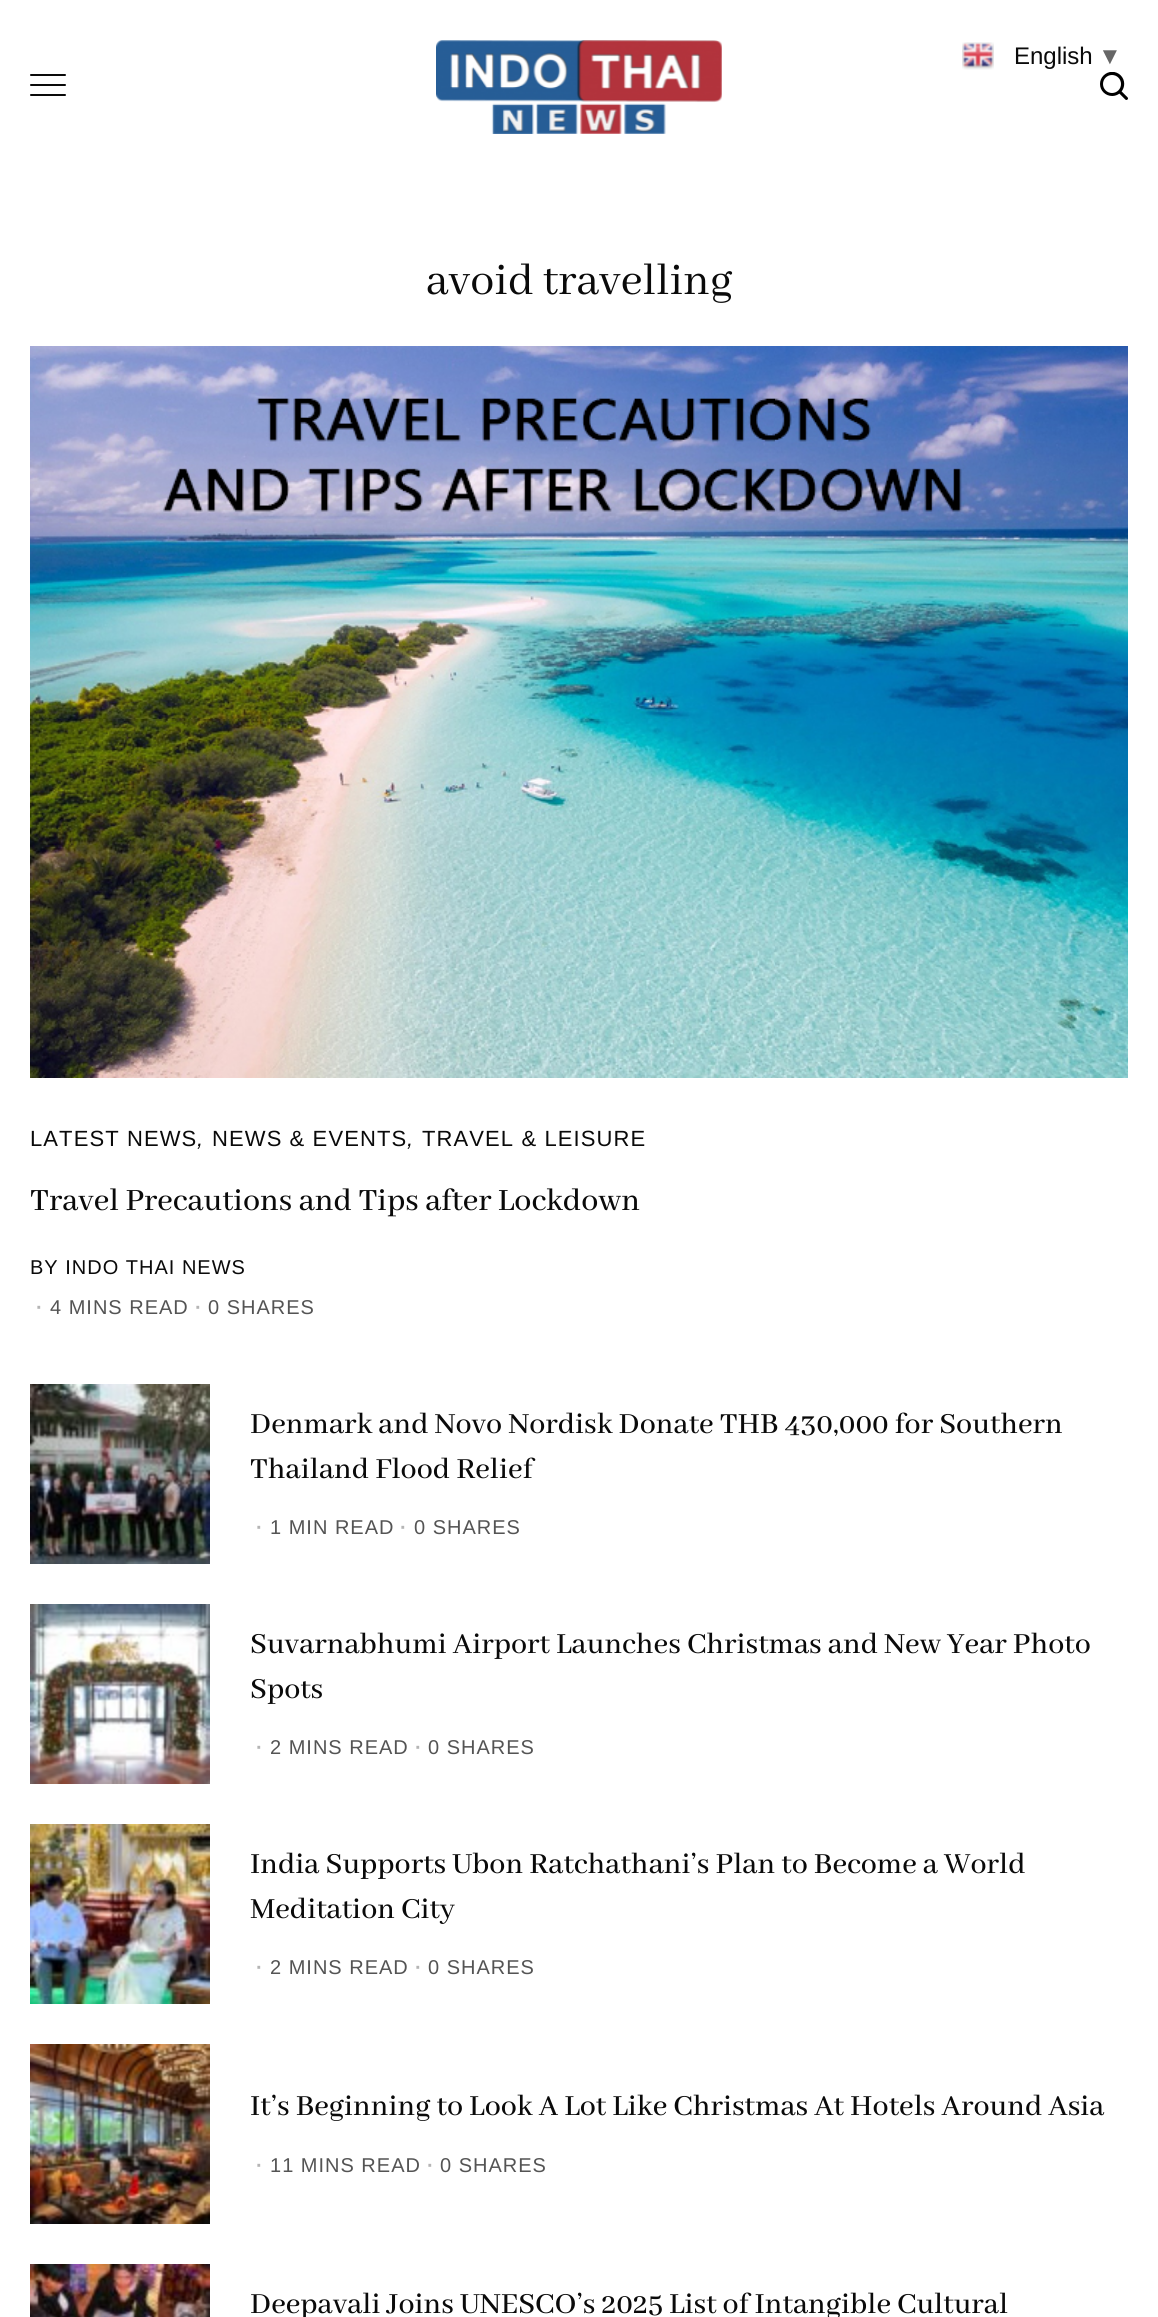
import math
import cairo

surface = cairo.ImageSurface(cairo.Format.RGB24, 1158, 2317)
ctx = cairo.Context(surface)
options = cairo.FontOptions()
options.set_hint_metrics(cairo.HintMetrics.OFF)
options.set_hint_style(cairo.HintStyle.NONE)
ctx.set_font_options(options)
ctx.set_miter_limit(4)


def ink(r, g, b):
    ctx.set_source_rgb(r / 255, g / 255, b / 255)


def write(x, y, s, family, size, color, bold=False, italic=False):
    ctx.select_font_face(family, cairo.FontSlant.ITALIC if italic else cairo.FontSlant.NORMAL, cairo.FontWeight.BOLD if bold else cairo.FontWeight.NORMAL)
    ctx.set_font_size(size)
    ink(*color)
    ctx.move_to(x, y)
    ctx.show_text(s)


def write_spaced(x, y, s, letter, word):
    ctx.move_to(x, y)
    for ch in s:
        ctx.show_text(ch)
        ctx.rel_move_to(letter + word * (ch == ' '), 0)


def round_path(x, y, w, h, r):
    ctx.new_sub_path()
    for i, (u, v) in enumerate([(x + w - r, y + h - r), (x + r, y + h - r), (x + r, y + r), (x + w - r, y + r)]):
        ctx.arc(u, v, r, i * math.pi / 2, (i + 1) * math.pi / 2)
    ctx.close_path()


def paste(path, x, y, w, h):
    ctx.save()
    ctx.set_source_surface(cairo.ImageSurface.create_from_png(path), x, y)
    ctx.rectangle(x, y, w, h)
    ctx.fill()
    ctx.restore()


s1 = dict(family="Liberation Sans", size=24, color=(10, 10, 10))
s2 = dict(family="Liberation Sans", size=24, color=(102, 102, 102), bold=True)
s3 = dict(family="Abhaya Libre", size=48, color=(10, 10, 10))
s4 = dict(family="Abhaya Libre Medium Medium", size=34, color=(10, 10, 10))
s5 = dict(family="Abhaya Libre Medium Medium", size=32, color=(10, 10, 10))

ink(255, 255, 255)
ctx.paint()
ink(10, 10, 10)
round_path(30, 74, 36, 2, 1)
ctx.fill()
round_path(30, 84, 36, 2, 1)
ctx.fill()
round_path(30, 94, 36, 2, 1)
ctx.fill()
paste("pic1.png", 436, 40, 286, 94)
paste("pic2.png", 1100, 72, 28, 28)
paste("pic3.png", 962, 42, 32, 28)
write(1014, 64, "English", **s1)
write(1098, 64, "▼", **s2)
write(426, 294, "avoid travelling", **s3)
paste("pic4.png", 30, 346, 1098, 732)
ctx.select_font_face("Liberation Sans")
ctx.set_font_size(22)
write_spaced(30, 1146, "LATEST NEWS", 1.1, 0)
ctx.select_font_face("Liberation Sans", cairo.FontSlant.ITALIC)
write_spaced(197, 1146, ",", 1.1, 0)
ctx.select_font_face("Liberation Sans")
write_spaced(212, 1146, "NEWS & EVENTS", 1.1, 0)
ctx.select_font_face("Liberation Sans", cairo.FontSlant.ITALIC)
write_spaced(407, 1146, ",", 1.1, 0)
ctx.select_font_face("Liberation Sans")
write_spaced(422, 1146, "TRAVEL & LEISURE", 1.1, 0)
write(30, 1210, "Travel Precautions and Tips after Lockdown", **s4)
ctx.select_font_face("Liberation Sans")
ctx.set_font_size(20)
write_spaced(30, 1274, "BY INDO THAI NEWS", 1, 0)
ctx.select_font_face("Liberation Sans", cairo.FontSlant.NORMAL, cairo.FontWeight.BOLD)
ink(181, 181, 181)
write_spaced(36, 1314, "·", 1, 0)
ctx.select_font_face("Liberation Sans")
ink(84, 84, 84)
write_spaced(50, 1314, "4 MINS READ", 1, 0)
ctx.select_font_face("Liberation Sans", cairo.FontSlant.NORMAL, cairo.FontWeight.BOLD)
ink(181, 181, 181)
write_spaced(195, 1314, "·", 1, 0)
ctx.select_font_face("Liberation Sans")
ink(84, 84, 84)
write_spaced(208, 1314, "0 SHARES", 1, 0)
paste("pic5.png", 30, 1384, 180, 180)
write(250, 1433, "Denmark and Novo Nordisk Donate THB 430,000 for Southern", **s5)
write(250, 1478, "Thailand Flood Relief", **s5)
ctx.select_font_face("Liberation Sans", cairo.FontSlant.NORMAL, cairo.FontWeight.BOLD)
ctx.set_font_size(20)
ink(181, 181, 181)
write_spaced(256, 1534, "·", 1, 0)
ctx.select_font_face("Liberation Sans")
ink(84, 84, 84)
write_spaced(270, 1534, "1 MIN READ", 1, 0)
ctx.select_font_face("Liberation Sans", cairo.FontSlant.NORMAL, cairo.FontWeight.BOLD)
ink(181, 181, 181)
write_spaced(400, 1534, "·", 1, 0)
ctx.select_font_face("Liberation Sans")
ink(84, 84, 84)
write_spaced(414, 1534, "0 SHARES", 1, 0)
paste("pic6.png", 30, 1604, 180, 180)
write(250, 1653, "Suvarnabhumi Airport Launches Christmas and New Year Photo", **s5)
write(250, 1698, "Spots", **s5)
ctx.select_font_face("Liberation Sans", cairo.FontSlant.NORMAL, cairo.FontWeight.BOLD)
ctx.set_font_size(20)
ink(181, 181, 181)
write_spaced(256, 1754, "·", 1, 0)
ctx.select_font_face("Liberation Sans")
ink(84, 84, 84)
write_spaced(270, 1754, "2 MINS READ", 1, 0)
ctx.select_font_face("Liberation Sans", cairo.FontSlant.NORMAL, cairo.FontWeight.BOLD)
ink(181, 181, 181)
write_spaced(415, 1754, "·", 1, 0)
ctx.select_font_face("Liberation Sans")
ink(84, 84, 84)
write_spaced(428, 1754, "0 SHARES", 1, 0)
paste("pic7.png", 30, 1824, 180, 180)
write(250, 1873, "India Supports Ubon Ratchathani’s Plan to Become a World", **s5)
write(250, 1918, "Meditation City", **s5)
ctx.select_font_face("Liberation Sans", cairo.FontSlant.NORMAL, cairo.FontWeight.BOLD)
ctx.set_font_size(20)
ink(181, 181, 181)
write_spaced(256, 1974, "·", 1, 0)
ctx.select_font_face("Liberation Sans")
ink(84, 84, 84)
write_spaced(270, 1974, "2 MINS READ", 1, 0)
ctx.select_font_face("Liberation Sans", cairo.FontSlant.NORMAL, cairo.FontWeight.BOLD)
ink(181, 181, 181)
write_spaced(415, 1974, "·", 1, 0)
ctx.select_font_face("Liberation Sans")
ink(84, 84, 84)
write_spaced(428, 1974, "0 SHARES", 1, 0)
paste("pic8.png", 30, 2044, 180, 180)
write(250, 2115, "It’s Beginning to Look A Lot Like Christmas At Hotels Around Asia", **s5)
ctx.select_font_face("Liberation Sans", cairo.FontSlant.NORMAL, cairo.FontWeight.BOLD)
ctx.set_font_size(20)
ink(181, 181, 181)
write_spaced(256, 2172, "·", 1, 0)
ctx.select_font_face("Liberation Sans")
ink(84, 84, 84)
write_spaced(270, 2172, "11 MINS READ", 1, 0)
ctx.select_font_face("Liberation Sans", cairo.FontSlant.NORMAL, cairo.FontWeight.BOLD)
ink(181, 181, 181)
write_spaced(427, 2172, "·", 1, 0)
ctx.select_font_face("Liberation Sans")
ink(84, 84, 84)
write_spaced(440, 2172, "0 SHARES", 1, 0)
paste("pic9.png", 30, 2264, 180, 53)
write(250, 2313, "Deepavali Joins UNESCO’s 2025 List of Intangible Cultural", **s5)
surface.write_to_png("screenshot.png")
